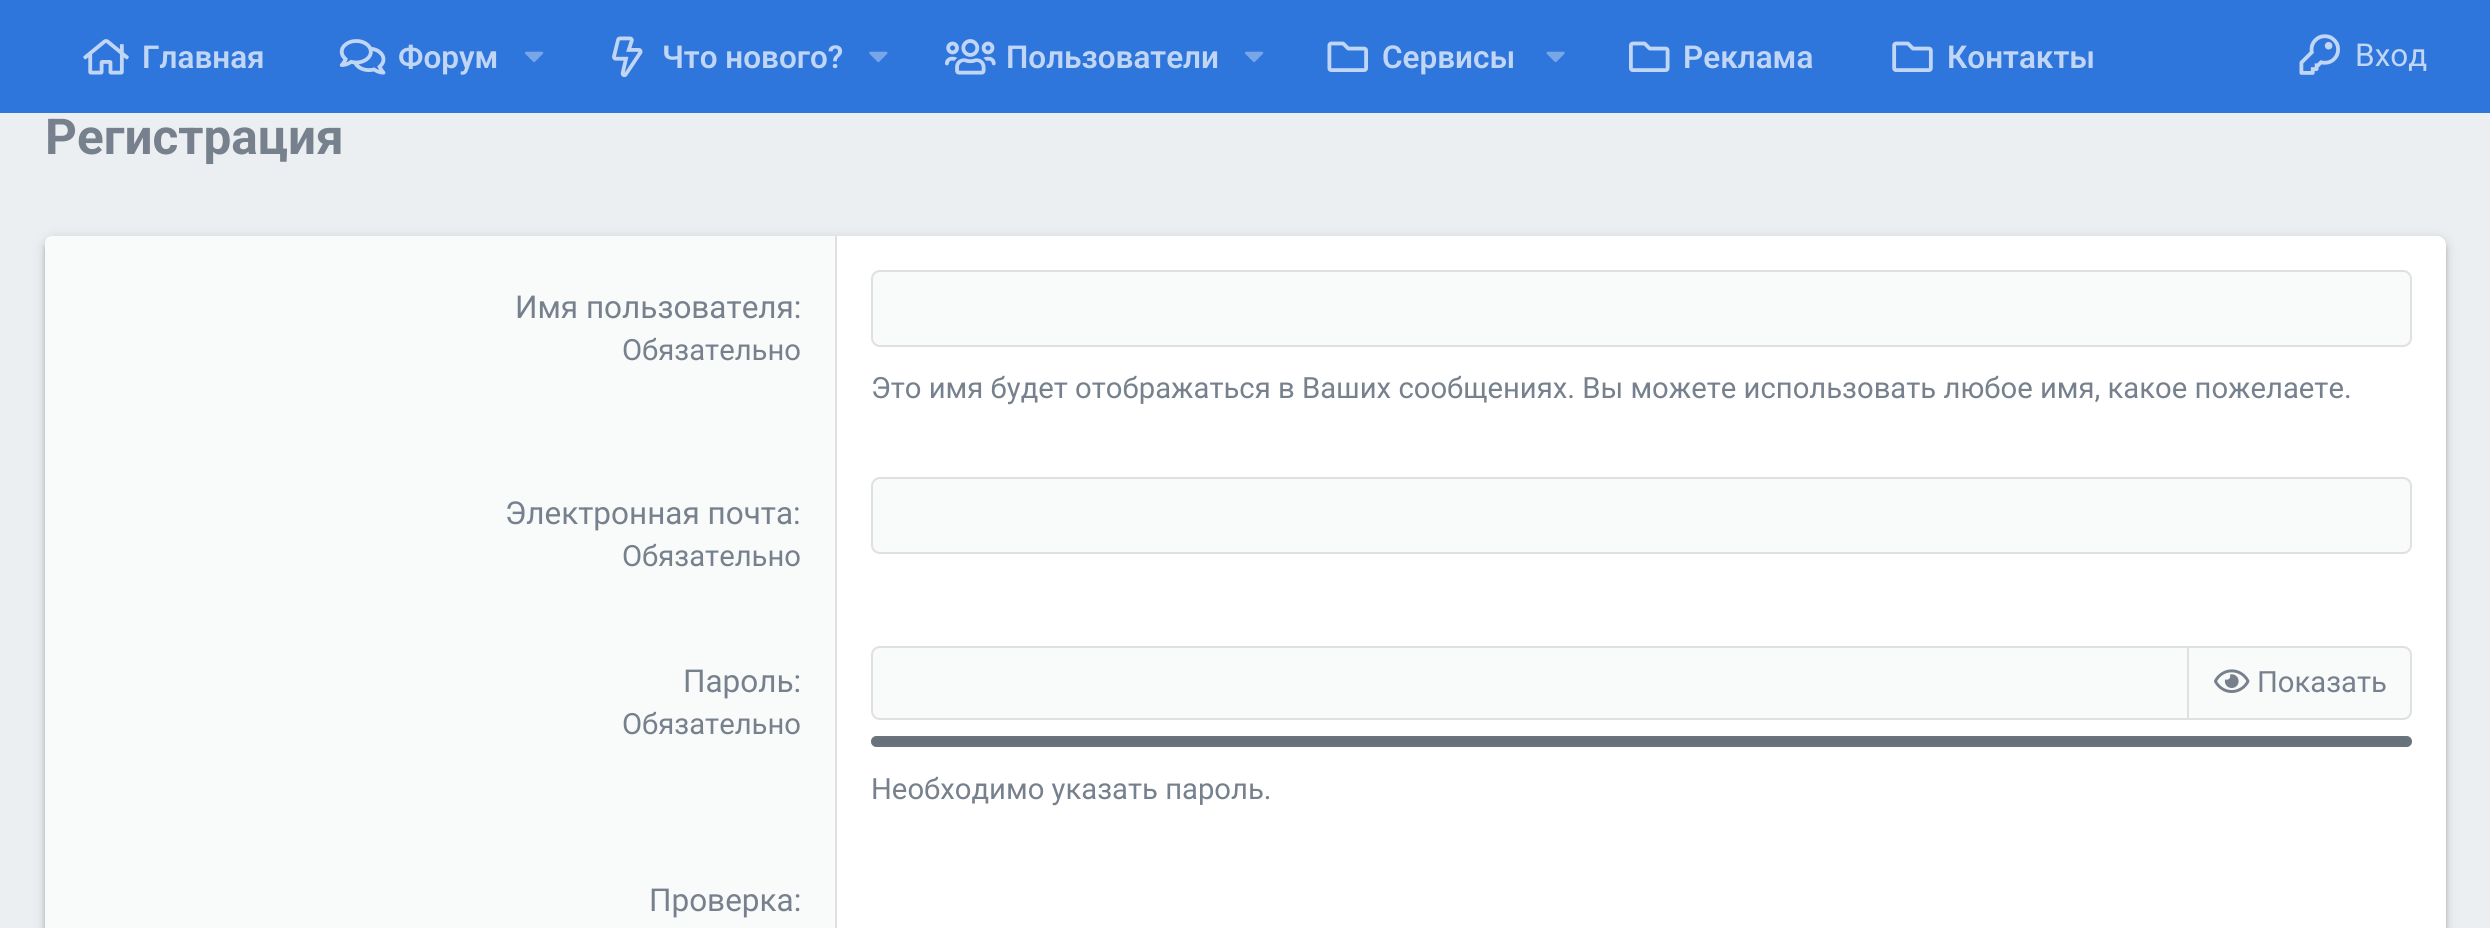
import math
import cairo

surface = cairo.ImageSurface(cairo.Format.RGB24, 2490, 928)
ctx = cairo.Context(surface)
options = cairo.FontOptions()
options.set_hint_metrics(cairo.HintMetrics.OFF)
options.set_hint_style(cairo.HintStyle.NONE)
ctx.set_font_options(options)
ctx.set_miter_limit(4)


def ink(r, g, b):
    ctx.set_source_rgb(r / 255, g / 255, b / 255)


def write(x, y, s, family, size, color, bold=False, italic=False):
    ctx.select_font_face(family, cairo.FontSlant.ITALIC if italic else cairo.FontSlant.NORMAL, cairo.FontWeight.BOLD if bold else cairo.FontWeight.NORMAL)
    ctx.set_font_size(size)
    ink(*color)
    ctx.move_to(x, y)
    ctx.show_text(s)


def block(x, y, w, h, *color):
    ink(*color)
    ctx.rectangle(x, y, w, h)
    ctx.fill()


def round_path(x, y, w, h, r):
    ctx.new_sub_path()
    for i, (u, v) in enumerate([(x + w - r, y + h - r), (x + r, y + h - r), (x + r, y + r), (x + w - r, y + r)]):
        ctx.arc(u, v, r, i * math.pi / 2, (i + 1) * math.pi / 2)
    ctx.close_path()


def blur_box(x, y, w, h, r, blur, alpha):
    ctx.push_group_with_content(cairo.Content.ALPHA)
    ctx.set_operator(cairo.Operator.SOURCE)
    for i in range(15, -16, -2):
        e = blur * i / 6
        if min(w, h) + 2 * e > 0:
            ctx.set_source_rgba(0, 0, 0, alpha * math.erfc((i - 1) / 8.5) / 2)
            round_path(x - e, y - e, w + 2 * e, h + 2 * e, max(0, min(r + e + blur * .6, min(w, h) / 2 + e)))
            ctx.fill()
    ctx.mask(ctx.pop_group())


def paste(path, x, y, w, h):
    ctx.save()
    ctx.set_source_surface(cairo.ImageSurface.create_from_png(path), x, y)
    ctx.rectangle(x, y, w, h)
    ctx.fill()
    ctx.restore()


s1 = dict(family="Roboto SemiBold", size=31.5, color=(193, 214, 245))
s2 = dict(family="Roboto", size=31.5, color=(193, 214, 245))
s3 = dict(family="Roboto", size=49.5, color=(118, 129, 141), bold=True)
s4 = dict(family="Roboto", size=31.5, color=(118, 129, 141))
s5 = dict(family="Roboto", size=29.25, color=(118, 129, 141))

ink(236, 239, 241)
ctx.paint()
block(0, 0, 2490, 113, 47, 118, 220)
paste("pic1.png", 83, 39, 46, 36)
write(142, 68, "Главная", **s1)
paste("pic2.png", 339, 39, 47, 36)
write(398, 68, "Форум", **s1)
paste("pic3.png", 525, 51, 19, 12)
paste("pic4.png", 612, 36, 31, 42)
write(662, 68, "Что нового?", **s1)
paste("pic5.png", 869, 51, 19, 12)
paste("pic6.png", 945, 39, 51, 36)
write(1006, 68, "Пользователи", **s1)
paste("pic3.png", 1245, 51, 19, 12)
paste("pic7.png", 1327, 41, 41, 31)
write(1382, 68, "Сервисы", **s1)
paste("pic8.png", 1546, 51, 19, 12)
paste("pic9.png", 1629, 41, 41, 31)
write(1683, 68, "Реклама", **s1)
paste("pic10.png", 1892, 41, 41, 31)
write(1947, 68, "Контакты", **s1)
paste("pic11.png", 2299, 34, 41, 41)
write(2355, 66, "Вход", **s2)
write(45, 154, "Регистрация", **s3)
ink(0, 0, 0)
blur_box(45, 239, 2401, 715, 9, 5.5, 0.2)
blur_box(45, 241, 2401, 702, 9, 2, 0.14)
ink(255, 255, 255)
round_path(45, 236, 2401, 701, 9)
ctx.fill()
ink(249, 250, 250)
ctx.new_path()
ctx.move_to(52, 236)
ctx.line_to(837, 236)
ctx.line_to(837, 443)
ctx.line_to(45, 443)
ctx.line_to(45, 243)
ctx.curve_to(45, 239, 48, 236, 52, 236)
ctx.close_path()
ctx.fill()
block(835, 236, 2, 692, 224, 224, 224)
write(515, 318, "Имя пользователя:", **s4)
write(622, 360, "Обязательно", **s5)
ink(249, 250, 250)
round_path(872, 271, 1539, 75, 8)
ctx.fill_preserve()
ink(224, 224, 224)
ctx.stroke()
write(871, 398, "Это имя будет отображаться в Ваших сообщениях. Вы можете использовать любое имя, какое пожелаете.", **s5)
block(45, 443, 790, 485, 249, 250, 250)
write(505, 524, "Электронная почта:", **s4)
write(622, 566, "Обязательно", **s5)
ink(249, 250, 250)
round_path(872, 478, 1539, 75, 8)
ctx.fill_preserve()
ink(224, 224, 224)
ctx.stroke()
write(683, 692, "Пароль:", **s4)
write(622, 734, "Обязательно", **s5)
ink(249, 250, 250)
ctx.new_path()
ctx.move_to(880, 646)
ctx.line_to(2187, 646)
ctx.line_to(2187, 720)
ctx.line_to(880, 720)
ctx.curve_to(875, 720, 871, 716, 871, 711)
ctx.line_to(871, 655)
ctx.curve_to(871, 650, 875, 646, 880, 646)
ctx.close_path()
ctx.fill()
ink(224, 224, 224)
ctx.set_fill_rule(cairo.FillRule.EVEN_ODD)
ctx.new_path()
ctx.move_to(880, 646)
ctx.line_to(2187, 646)
ctx.line_to(2187, 720)
ctx.line_to(880, 720)
ctx.curve_to(875, 720, 871, 716, 871, 711)
ctx.line_to(871, 655)
ctx.curve_to(871, 650, 875, 646, 880, 646)
ctx.close_path()
ctx.move_to(880, 648)
ctx.line_to(2187, 648)
ctx.line_to(2187, 718)
ctx.line_to(880, 718)
ctx.curve_to(876, 718, 873, 715, 873, 711)
ctx.line_to(873, 655)
ctx.curve_to(873, 651, 876, 648, 880, 648)
ctx.close_path()
ctx.fill()
ink(249, 250, 250)
ctx.new_path()
ctx.move_to(2188, 647)
ctx.line_to(2403, 647)
ctx.curve_to(2407.5, 647, 2411, 650.5, 2411, 655)
ctx.line_to(2411, 711)
ctx.curve_to(2411, 715.5, 2407.5, 719, 2403, 719)
ctx.line_to(2188, 719)
ctx.close_path()
ctx.fill_preserve()
ink(224, 224, 224)
ctx.stroke()
paste("pic12.png", 2214, 669, 36, 24)
write(2257, 692, "Показать", **s5)
ink(104, 114, 124)
round_path(871, 736, 1541, 11, 5.5)
ctx.fill()
round_path(872, 737, 1539, 9, 4.5)
ctx.set_source_rgba(0.463, 0.463, 0.463, 0.3)
ctx.stroke()
write(871, 799, "Необходимо указать пароль.", **s5)
write(649, 911, "Проверка:", **s4)
surface.write_to_png("screenshot.png")
